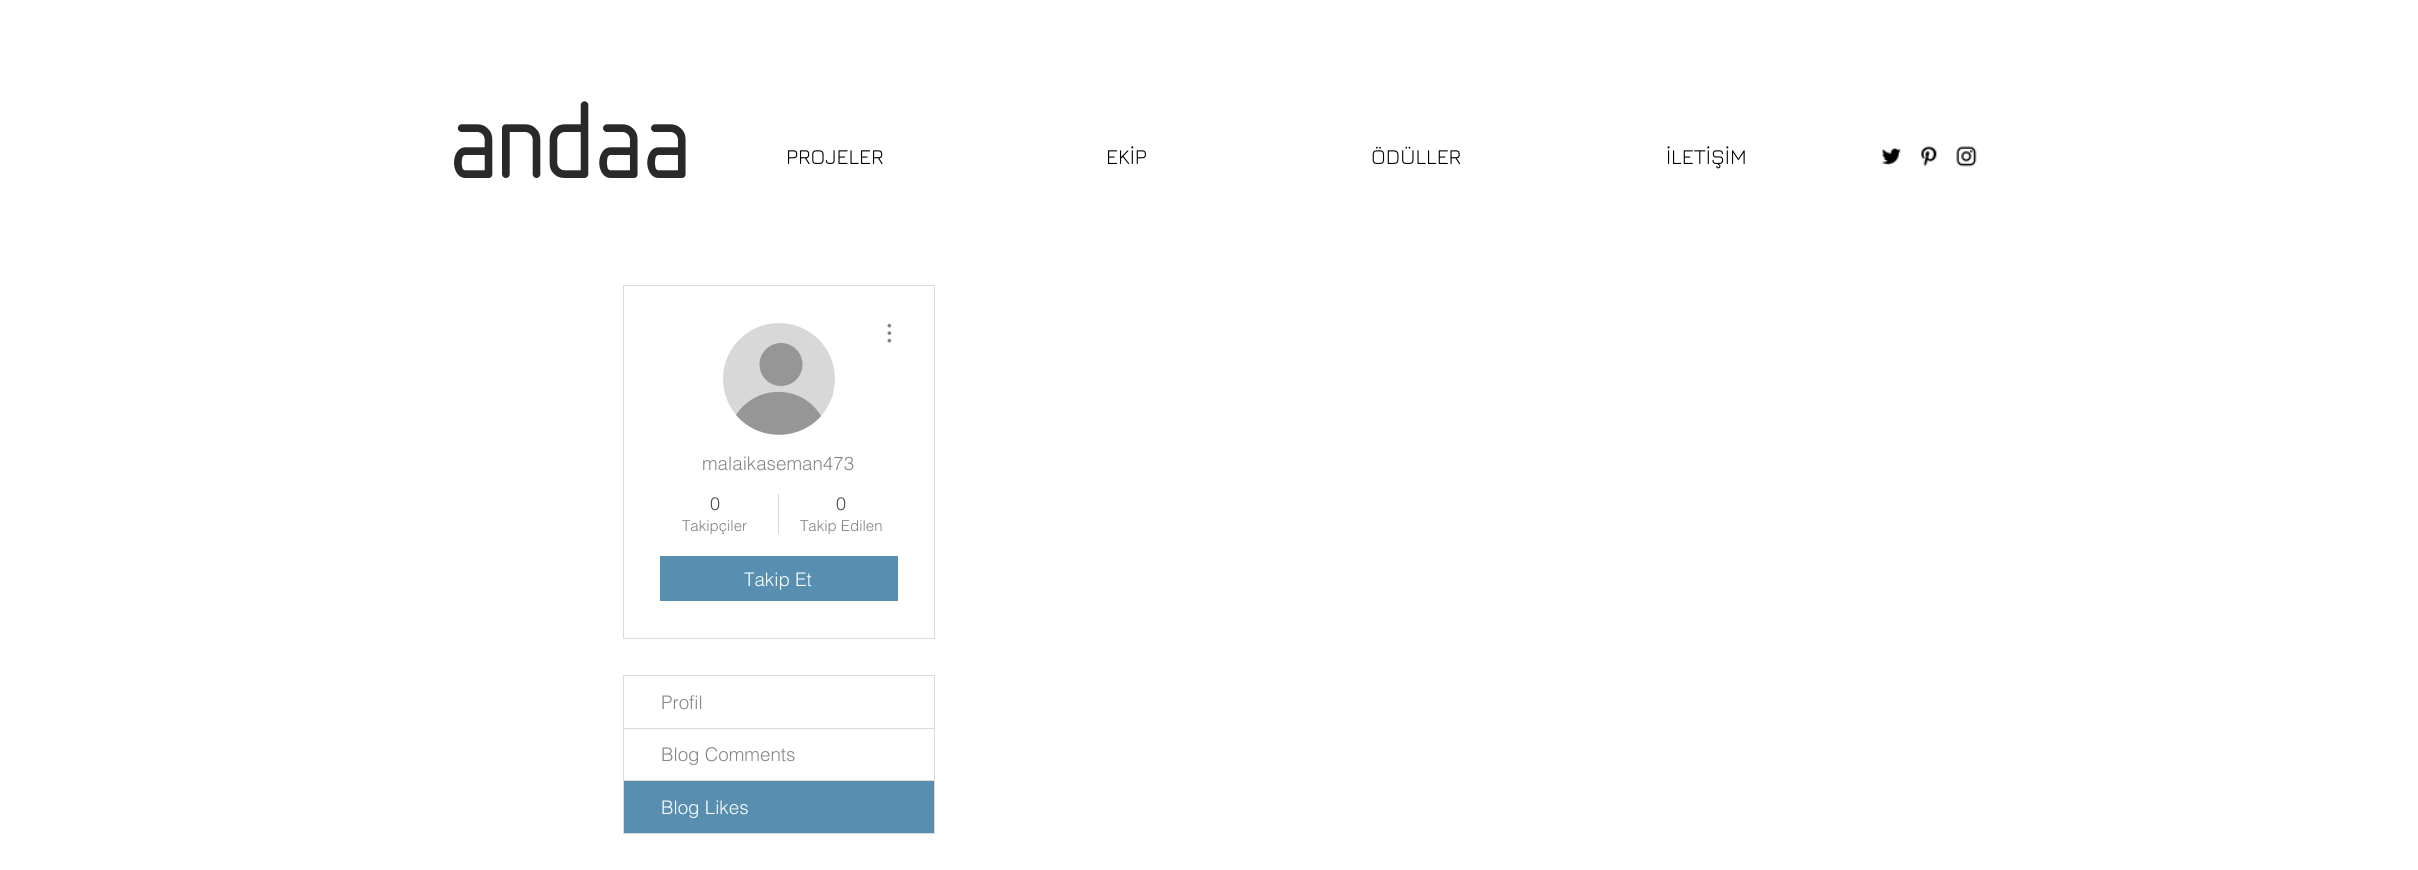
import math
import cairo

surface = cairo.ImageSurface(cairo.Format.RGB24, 2418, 870)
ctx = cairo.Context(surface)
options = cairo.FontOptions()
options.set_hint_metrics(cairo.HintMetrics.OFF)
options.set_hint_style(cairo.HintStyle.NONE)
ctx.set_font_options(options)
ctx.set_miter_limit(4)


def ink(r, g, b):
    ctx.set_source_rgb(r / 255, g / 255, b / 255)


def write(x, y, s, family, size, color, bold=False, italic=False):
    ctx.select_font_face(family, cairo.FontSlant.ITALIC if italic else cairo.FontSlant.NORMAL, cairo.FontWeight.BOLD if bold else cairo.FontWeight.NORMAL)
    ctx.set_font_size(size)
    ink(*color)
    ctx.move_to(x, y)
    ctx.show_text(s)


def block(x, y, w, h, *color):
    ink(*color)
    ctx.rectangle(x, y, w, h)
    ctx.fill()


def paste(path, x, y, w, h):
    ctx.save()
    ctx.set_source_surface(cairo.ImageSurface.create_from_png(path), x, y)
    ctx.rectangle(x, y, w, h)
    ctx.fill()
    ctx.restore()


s1 = dict(family="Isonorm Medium", size=115, color=(41, 41, 41))
s2 = dict(family="Jura", size=21.25, color=(0, 0, 0))
s3 = dict(family="helvetica Light", size=18.75, color=(134, 134, 134))
s4 = dict(family="helvetica Light", size=18, color=(74, 74, 74))
s5 = dict(family="helvetica Light", size=15, color=(128, 128, 128))
s6 = dict(family="helvetica Light", size=18.75, color=(255, 255, 255))

ink(255, 255, 255)
ctx.paint()
write(454, 178, "andaa", **s1)
write(786, 164, "PROJELER", **s2)
write(1106, 164, "EKİP", **s2)
write(1371, 164, "ÖDÜLLER", **s2)
write(1666, 164, "İLETİŞİM", **s2)
paste("pic1.png", 1881, 147, 21, 19)
paste("pic2.png", 1921, 146, 17, 21)
paste("pic3.png", 1956, 146, 21, 21)
ctx.rectangle(623.5, 285.5, 311, 353)
ink(219, 219, 219)
ctx.set_line_width(1)
ctx.stroke()
ink(216, 216, 216)
ctx.arc(779, 379, 56, 0, 2 * math.pi)
ctx.fill()
ink(150, 150, 150)
ctx.arc(781, 364.5, 21.5, 0, 2 * math.pi)
ctx.fill()
ctx.new_path()
ctx.move_to(821, 416)
ctx.curve_to(799, 441, 758, 441, 736, 415)
ctx.curve_to(756, 384, 802, 384, 821, 416)
ctx.close_path()
ctx.fill()
paste("pic4.png", 887, 323, 5, 20)
write(702, 470, "malaikaseman473", **s3)
write(710, 510, "0", **s4)
write(682, 531, "Takipçiler", **s5)
block(778, 494, 1, 40, 219, 219, 219)
write(836, 510, "0", **s4)
write(800, 531, "Takip Edilen", **s5)
block(660, 556, 238, 45, 88, 143, 177)
write(744, 586, "Takip Et", **s6)
ctx.rectangle(623.5, 675.5, 311, 158)
ink(219, 219, 219)
ctx.stroke()
block(624, 728, 310, 1, 219, 219, 219)
write(661, 709, "Profil", **s3)
block(624, 780, 310, 1, 219, 219, 219)
write(661, 761, "Blog Comments", **s3)
block(624, 781, 310, 52, 88, 143, 177)
write(661, 814, "Blog Likes", **s6)
surface.write_to_png("screenshot.png")
